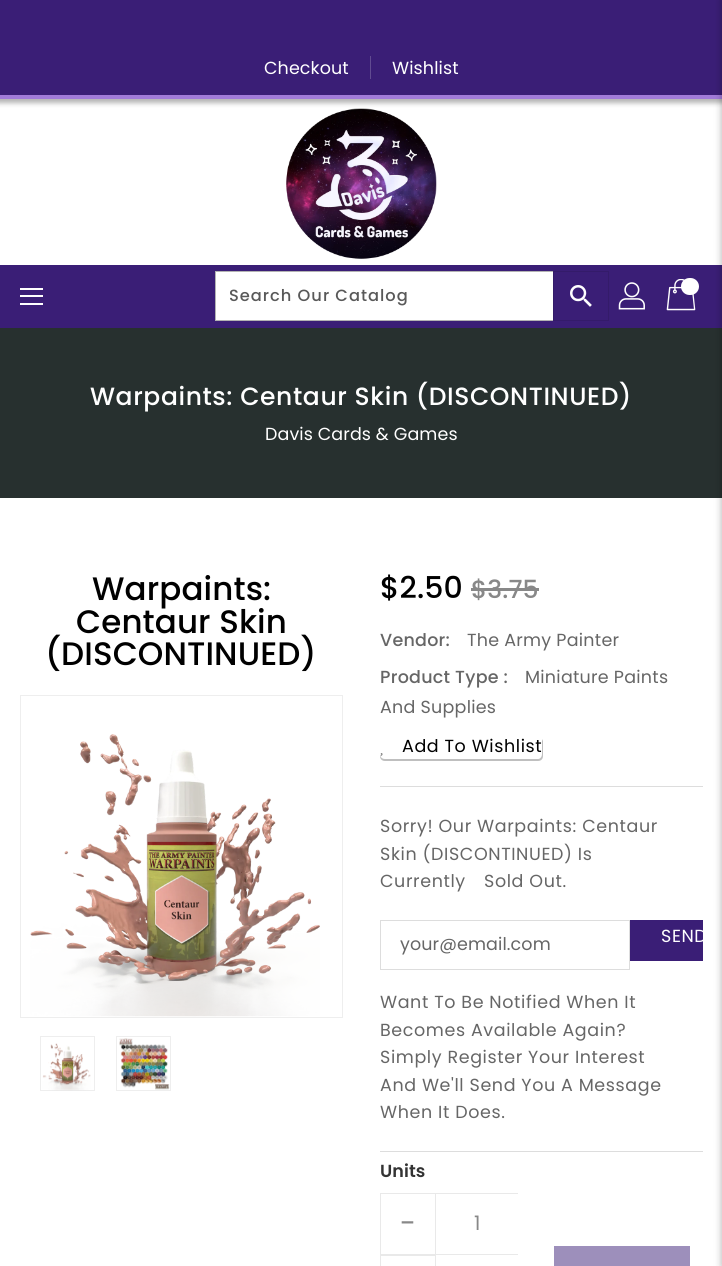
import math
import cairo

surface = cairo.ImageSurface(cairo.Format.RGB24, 722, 1266)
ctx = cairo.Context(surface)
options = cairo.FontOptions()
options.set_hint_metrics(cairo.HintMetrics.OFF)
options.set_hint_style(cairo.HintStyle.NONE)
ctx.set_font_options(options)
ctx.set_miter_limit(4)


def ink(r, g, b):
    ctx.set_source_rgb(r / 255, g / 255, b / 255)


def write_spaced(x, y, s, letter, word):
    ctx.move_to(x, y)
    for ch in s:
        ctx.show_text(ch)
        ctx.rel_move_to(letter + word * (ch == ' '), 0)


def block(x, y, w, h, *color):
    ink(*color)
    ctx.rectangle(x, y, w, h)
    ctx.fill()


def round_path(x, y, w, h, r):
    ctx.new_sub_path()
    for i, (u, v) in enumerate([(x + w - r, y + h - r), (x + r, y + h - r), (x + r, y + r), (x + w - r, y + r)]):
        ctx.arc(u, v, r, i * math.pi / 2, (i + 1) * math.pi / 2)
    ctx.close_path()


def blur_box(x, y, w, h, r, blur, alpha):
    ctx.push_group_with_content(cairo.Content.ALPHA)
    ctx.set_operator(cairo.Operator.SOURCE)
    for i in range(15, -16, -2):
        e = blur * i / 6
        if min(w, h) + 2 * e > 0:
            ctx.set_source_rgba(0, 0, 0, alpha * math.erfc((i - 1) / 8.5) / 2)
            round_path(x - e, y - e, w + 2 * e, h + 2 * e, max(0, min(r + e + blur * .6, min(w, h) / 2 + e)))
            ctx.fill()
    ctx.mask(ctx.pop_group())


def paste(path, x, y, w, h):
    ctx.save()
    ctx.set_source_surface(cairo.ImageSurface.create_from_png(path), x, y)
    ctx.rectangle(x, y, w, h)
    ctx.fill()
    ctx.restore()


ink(255, 255, 255)
ctx.paint()
ink(0, 0, 0)
blur_box(-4, -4, 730, 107, 0, 2.5, 0.3)
block(0, 0, 722, 95, 58, 30, 118)
block(0, 95, 722, 4, 161, 123, 216)
ctx.select_font_face("Poppins")
ctx.set_font_size(17.5)
ink(255, 255, 255)
write_spaced(264, 74, "Checkout", 0.1, 0)
block(370, 56, 1, 23, 97, 75, 145)
ink(255, 255, 255)
write_spaced(392, 74, "Wishlist", 0.1, 0)
paste("pic1.png", 286, 108, 151, 151)
block(0, 265, 722, 63, 58, 30, 118)
block(20, 288, 23, 2, 255, 255, 255)
block(20, 295, 23, 2, 255, 255, 255)
block(20, 303, 23, 2, 255, 255, 255)
block(216, 272, 337, 48, 255, 255, 255)
ctx.rectangle(215.5, 271.5, 393, 49)
ink(179, 179, 179)
ctx.set_line_width(1)
ctx.stroke()
ctx.select_font_face("Poppins Medium")
ctx.set_font_size(16.25)
ink(89, 89, 89)
write_spaced(229, 301, "Search Our Catalog", 1, 0)
ctx.rectangle(553.5, 271.5, 55, 49)
ink(52, 27, 106)
ctx.stroke()
paste("pic2.png", 570, 285, 22, 22)
paste("pic3.png", 618, 282, 27, 28)
paste("pic4.png", 666, 279, 30, 32)
ink(255, 255, 255)
round_path(681, 278, 18, 17, 8.5)
ctx.fill()
block(0, 328, 722, 170, 39, 48, 47)
ctx.set_font_size(25)
ink(255, 255, 255)
write_spaced(90, 405, "Warpaints: Centaur Skin (DISCONTINUED)", 0.6, 0)
ctx.select_font_face("Poppins")
ctx.set_font_size(17.5)
write_spaced(265, 440, "Davis Cards & Games", 0.1, 0)
ctx.select_font_face("Poppins Medium")
ctx.set_font_size(32.5)
ink(0, 0, 0)
write_spaced(92, 600, "Warpaints:", 0.1, 0)
write_spaced(76, 633, "Centaur Skin", 0.1, 0)
write_spaced(45, 665, "(DISCONTINUED)", 0.1, 0)
ctx.rectangle(20.5, 695.5, 322, 322)
ink(238, 238, 238)
ctx.stroke()
paste("pic5.png", 30, 734, 290, 283)
ctx.rectangle(40.5, 1036.5, 54, 54)
ctx.stroke()
paste("pic6.png", 42, 1043, 49, 48)
ctx.rectangle(116.5, 1036.5, 54, 54)
ctx.stroke()
paste("pic7.png", 119, 1038, 51, 52)
ctx.set_font_size(30)
ink(0, 0, 0)
write_spaced(380, 598, "$2.50", 0.1, 0)
ctx.set_font_size(25)
ink(136, 136, 136)
write_spaced(471, 598, "$3.75", 0.1, 0)
block(471, 588, 68, 3, 136, 136, 136)
ctx.set_font_size(17.5)
ink(102, 102, 102)
write_spaced(380, 646, "Vendor:", 0.25, 0)
ctx.select_font_face("Poppins")
write_spaced(467, 646, "The Army Painter", 0.25, 0)
ctx.select_font_face("Poppins Medium")
write_spaced(380, 683, "Product Type :", 0.25, 0)
ctx.select_font_face("Poppins")
write_spaced(525, 683, "Miniature Paints", 0.25, 0)
write_spaced(380, 713, "And Supplies", 0.25, 0)
ink(191, 191, 191)
ctx.new_path()
ctx.move_to(380, 754)
ctx.line_to(380, 756)
ctx.curve_to(380, 759, 382, 761, 385, 761)
ctx.line_to(538, 761)
ctx.curve_to(541, 761, 543, 759, 543, 756)
ctx.line_to(543, 741)
ctx.line_to(542, 739)
ctx.line_to(542, 754)
ctx.curve_to(542, 757, 540, 759, 538, 759)
ctx.line_to(385, 759)
ctx.curve_to(382, 759, 380, 757, 380, 754)
ctx.close_path()
ctx.fill()
ink(0, 0, 0)
write_spaced(402, 752, "Add To Wishlist", 0.6, 0)
paste("pic8.png", 380, 753, 3, 4)
block(380, 786, 323, 1, 221, 221, 221)
block(380, 1151, 323, 1, 221, 221, 221)
ink(102, 102, 102)
write_spaced(380, 832, "Sorry! Our Warpaints: Centaur", 0.6, 0)
write_spaced(380, 860, "Skin (DISCONTINUED) Is", 0.6, 0)
write_spaced(380, 887, "Currently", 0.6, 0)
write_spaced(484, 887, "Sold Out.", 0.6, 0)
ctx.rectangle(380.5, 920.5, 249, 49)
ink(221, 221, 221)
ctx.stroke()
ink(102, 102, 102)
write_spaced(400, 950, "your@email.com", 0.1, 0)
block(630, 920, 73, 41, 58, 30, 118)
ctx.save()
ctx.rectangle(631, 920, 72, 40)
ctx.clip()
ink(255, 255, 255)
write_spaced(661, 942, "SEND", 0.6, 0)
ctx.restore()
ink(102, 102, 102)
write_spaced(380, 1008, "Want To Be Notified When It", 0.6, 0)
write_spaced(380, 1036, "Becomes Available Again?", 0.6, 0)
write_spaced(380, 1063, "Simply Register Your Interest", 0.6, 0)
write_spaced(380, 1091, "And We'll Send You A Message", 0.6, 0)
write_spaced(380, 1118, "When It Does.", 0.6, 0)
ctx.select_font_face("Poppins SemiBold")
ink(51, 51, 51)
write_spaced(380, 1177, "Units", 0.1, 0)
ctx.rectangle(380.5, 1193.5, 55, 61)
ink(233, 233, 233)
ctx.stroke()
ctx.select_font_face("Poppins")
ctx.set_font_size(29)
ink(136, 136, 136)
write_spaced(400, 1233, "-", 0.6, 0)
block(436, 1193, 82, 1, 233, 233, 233)
block(436, 1254, 82, 1, 233, 233, 233)
ctx.set_font_size(20)
ink(136, 136, 136)
write_spaced(474, 1230, "1", 0.1, 0)
ctx.rectangle(380.5, 1255.5, 55, 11)
ink(233, 233, 233)
ctx.stroke()
block(554, 1246, 136, 20, 157, 143, 187)
ink(0, 0, 0)
blur_box(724, 0, 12, 1266, 0, 4.5, 0.5)
surface.write_to_png("screenshot.png")
